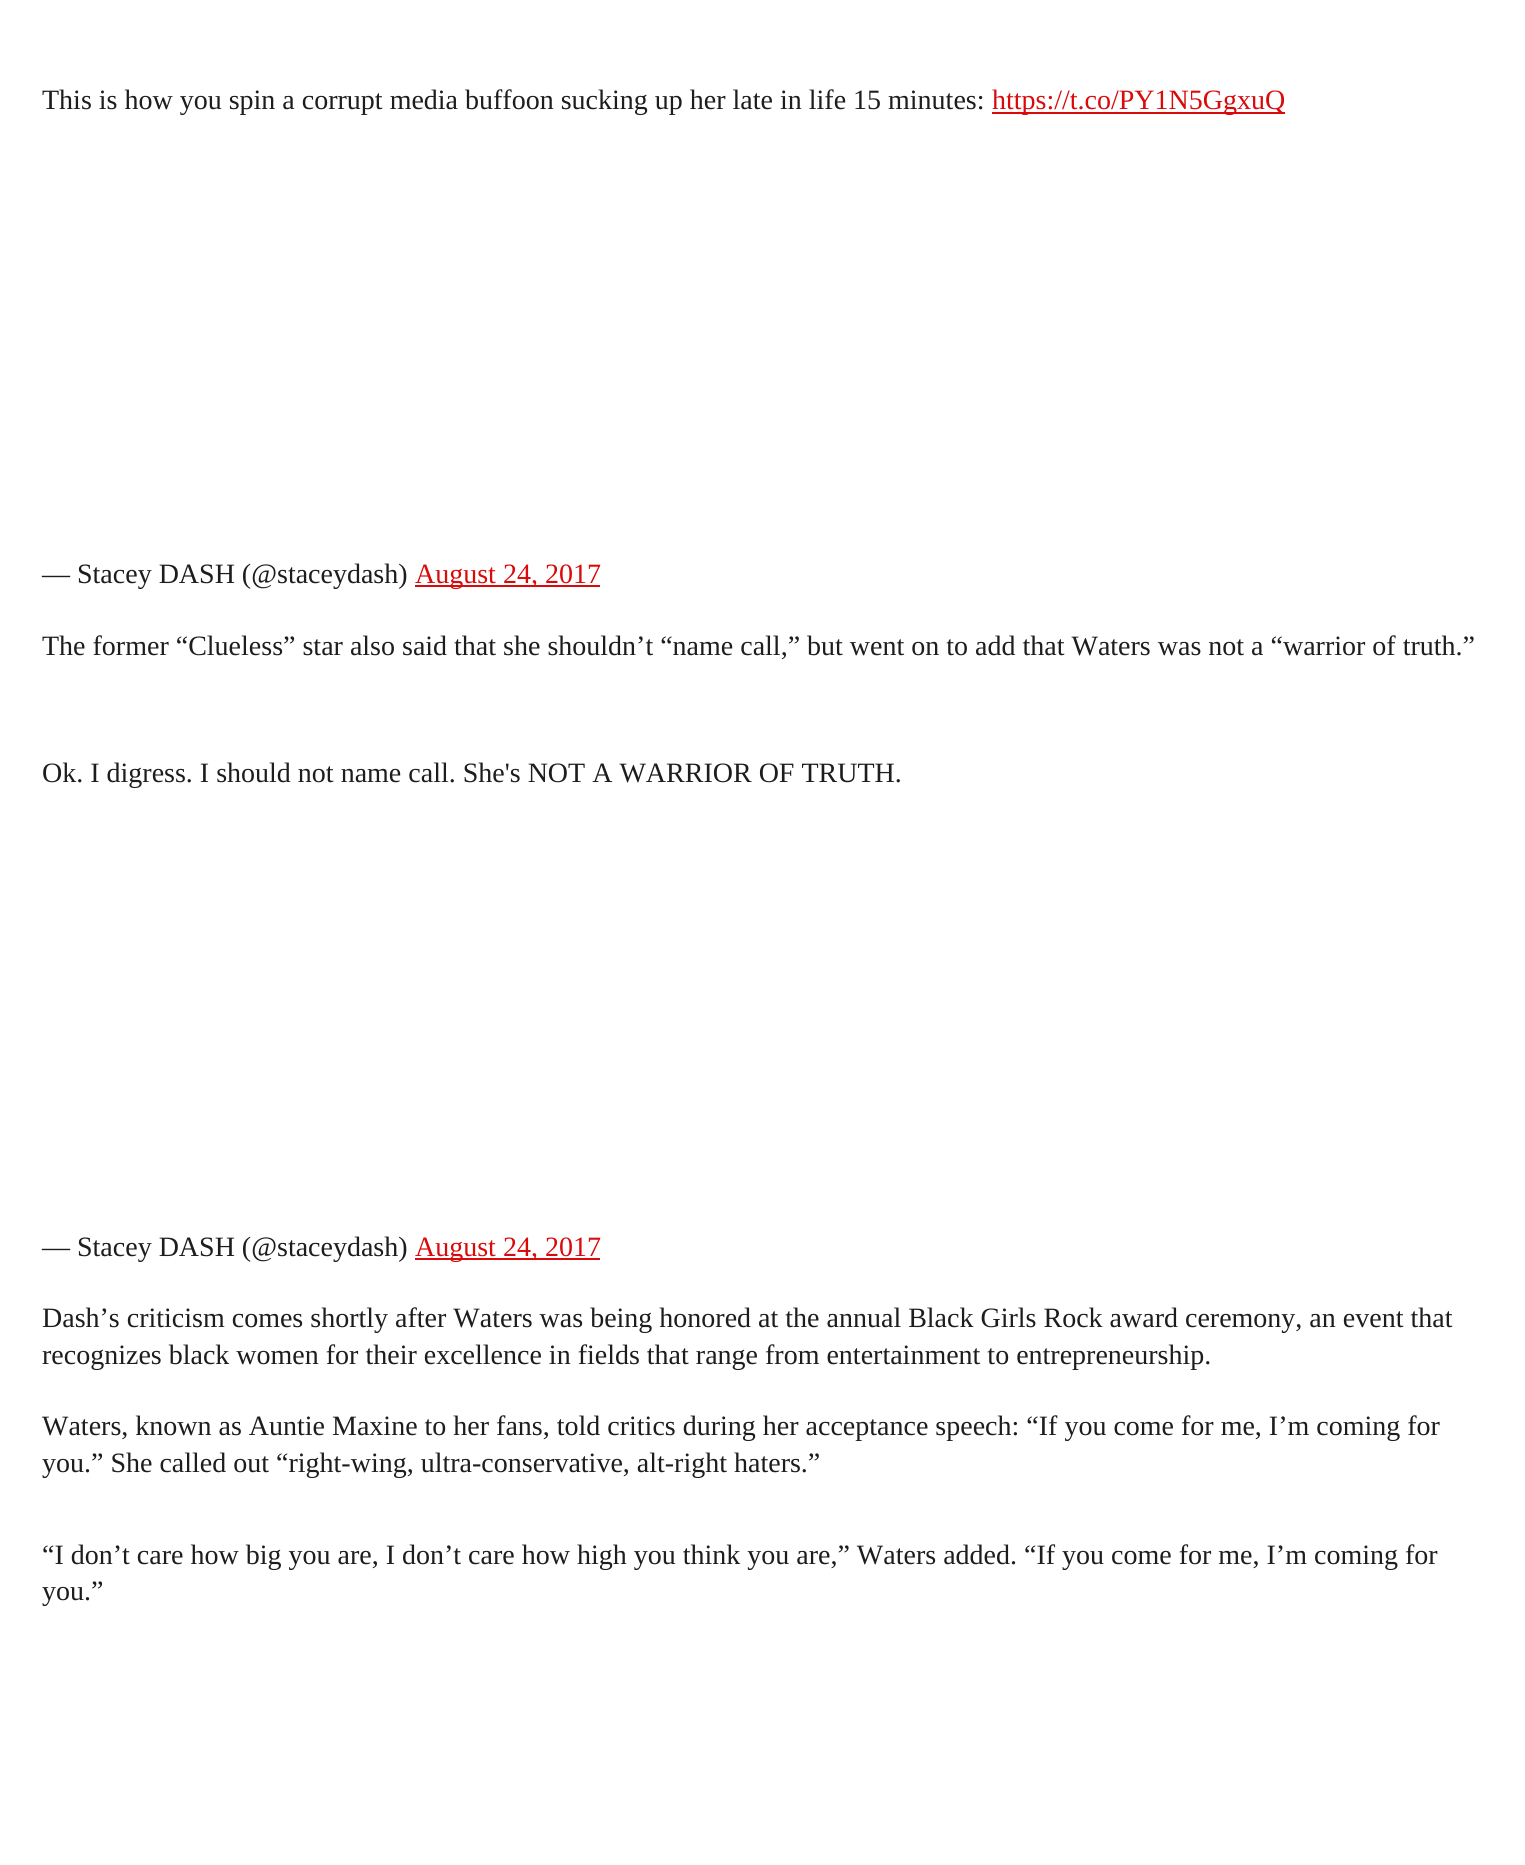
import math
import cairo

surface = cairo.ImageSurface(cairo.Format.RGB24, 1525, 1865)
ctx = cairo.Context(surface)
options = cairo.FontOptions()
options.set_hint_metrics(cairo.HintMetrics.OFF)
options.set_hint_style(cairo.HintStyle.NONE)
ctx.set_font_options(options)
ctx.set_miter_limit(4)


def ink(r, g, b):
    ctx.set_source_rgb(r / 255, g / 255, b / 255)


def write(x, y, s, family, size, color, bold=False, italic=False):
    ctx.select_font_face(family, cairo.FontSlant.ITALIC if italic else cairo.FontSlant.NORMAL, cairo.FontWeight.BOLD if bold else cairo.FontWeight.NORMAL)
    ctx.set_font_size(size)
    ink(*color)
    ctx.move_to(x, y)
    ctx.show_text(s)


def block(x, y, w, h, *color):
    ink(*color)
    ctx.rectangle(x, y, w, h)
    ctx.fill()


s1 = dict(family="Liberation Serif", size=28, color=(29, 29, 31))
s2 = dict(family="Liberation Serif", size=28, color=(218, 10, 10))

ink(255, 255, 255)
ctx.paint()
write(42, 109, "This is how you spin a corrupt media buffoon sucking up her late in life 15 minutes:", **s1)
block(992, 112, 293, 2, 218, 10, 10)
write(992, 109, "https://t.co/PY1N5GgxuQ", **s2)
write(42, 583, "— Stacey DASH (@staceydash)", **s1)
block(415, 585, 185, 2, 218, 10, 10)
write(415, 583, "August 24, 2017", **s2)
write(42, 655, "The former “Clueless” star also said that she shouldn’t “name call,” but went on to add that Waters was not a “warrior of truth.”", **s1)
write(42, 782, "Ok. I digress. I should not name call. She's NOT A WARRIOR OF TRUTH.", **s1)
write(42, 1256, "— Stacey DASH (@staceydash)", **s1)
block(415, 1258, 185, 2, 218, 10, 10)
write(415, 1256, "August 24, 2017", **s2)
write(42, 1327, "Dash’s criticism comes shortly after Waters was being honored at the annual Black Girls Rock award ceremony, an event that", **s1)
write(42, 1364, "recognizes black women for their excellence in fields that range from entertainment to entrepreneurship.", **s1)
write(42, 1435, "Waters, known as Auntie Maxine to her fans, told critics during her acceptance speech: “If you come for me, I’m coming for", **s1)
write(42, 1472, "you.” She called out “right-wing, ultra-conservative, alt-right haters.”", **s1)
write(42, 1564, "“I don’t care how big you are, I don’t care how high you think you are,” Waters added. “If you come for me, I’m coming for", **s1)
write(42, 1600, "you.”", **s1)
surface.write_to_png("screenshot.png")
